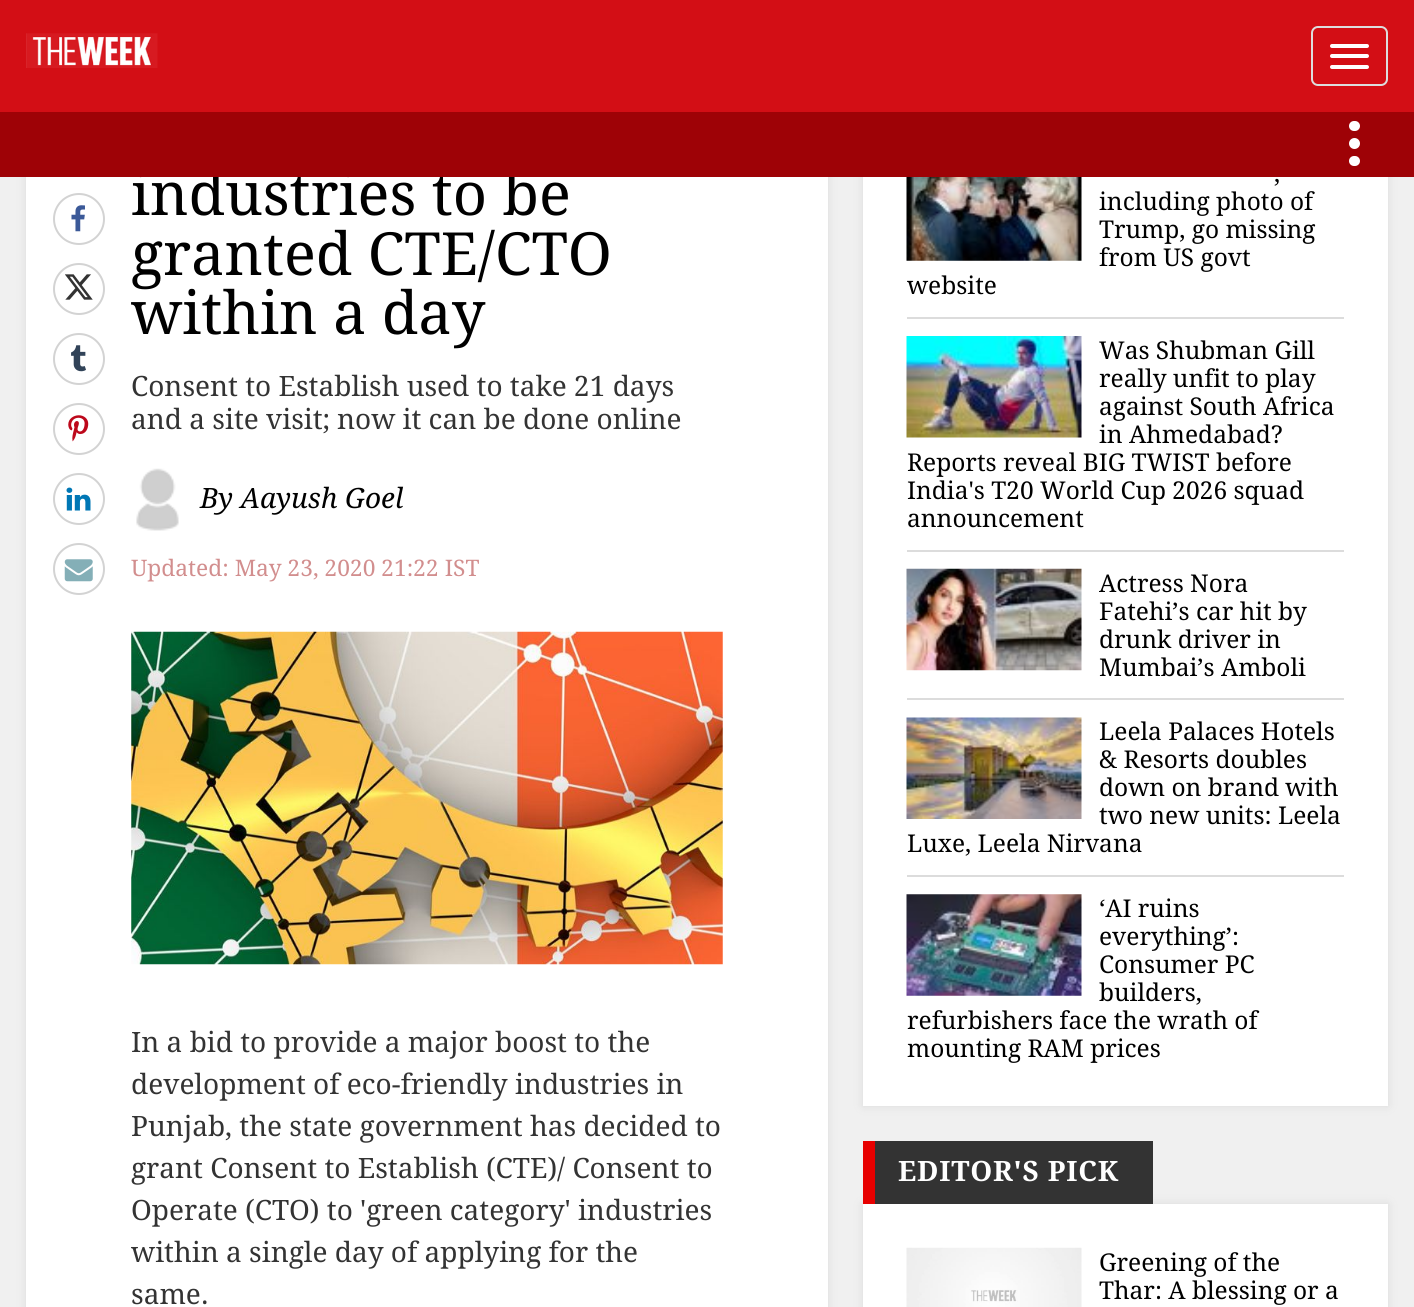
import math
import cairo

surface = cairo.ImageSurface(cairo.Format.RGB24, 1414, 1307)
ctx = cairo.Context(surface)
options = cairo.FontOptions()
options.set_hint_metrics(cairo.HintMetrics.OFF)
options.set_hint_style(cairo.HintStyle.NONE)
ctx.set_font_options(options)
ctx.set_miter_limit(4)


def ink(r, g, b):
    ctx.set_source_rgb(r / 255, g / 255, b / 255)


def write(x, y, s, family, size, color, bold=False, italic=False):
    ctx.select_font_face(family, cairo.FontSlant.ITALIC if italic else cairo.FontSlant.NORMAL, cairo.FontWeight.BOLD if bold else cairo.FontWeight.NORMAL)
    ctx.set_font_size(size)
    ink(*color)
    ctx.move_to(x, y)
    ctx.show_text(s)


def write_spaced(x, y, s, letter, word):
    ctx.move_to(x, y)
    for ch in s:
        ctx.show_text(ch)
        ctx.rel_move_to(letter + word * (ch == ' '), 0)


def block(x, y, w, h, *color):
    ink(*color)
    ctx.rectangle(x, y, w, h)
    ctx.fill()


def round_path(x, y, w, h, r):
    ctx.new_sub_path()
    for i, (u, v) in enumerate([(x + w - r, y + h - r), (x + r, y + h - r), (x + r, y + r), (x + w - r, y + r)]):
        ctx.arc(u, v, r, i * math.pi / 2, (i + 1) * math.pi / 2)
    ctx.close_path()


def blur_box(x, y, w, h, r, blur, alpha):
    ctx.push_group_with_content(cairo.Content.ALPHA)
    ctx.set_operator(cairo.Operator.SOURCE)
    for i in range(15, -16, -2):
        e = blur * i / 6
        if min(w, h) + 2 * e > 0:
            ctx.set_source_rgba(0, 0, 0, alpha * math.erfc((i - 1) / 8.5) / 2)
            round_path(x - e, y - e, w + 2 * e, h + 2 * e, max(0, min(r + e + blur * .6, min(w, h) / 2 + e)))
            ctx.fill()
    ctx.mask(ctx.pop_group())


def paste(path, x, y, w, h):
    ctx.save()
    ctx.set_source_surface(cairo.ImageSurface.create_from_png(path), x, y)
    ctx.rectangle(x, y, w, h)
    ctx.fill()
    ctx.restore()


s1 = dict(family="Droid Serif", size=59.5, color=(0, 0, 0))
s2 = dict(family="Droid Serif", size=28, color=(51, 51, 51))
s3 = dict(family="Droid Serif", size=28, color=(0, 0, 0), italic=True)
s4 = dict(family="Droid Serif", size=22.75, color=(210, 142, 142))
s5 = dict(family="Droid Serif", size=24.5, color=(0, 0, 0))

ink(240, 240, 240)
ctx.paint()
ink(219, 219, 219)
blur_box(26, 18, 802, 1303, 0, 4.5, 1)
blur_box(863, 116, 525, 990, 0, 4.5, 1)
block(0, 0, 1414, 112, 211, 14, 21)
paste("pic1.png", 26, 33, 132, 35)
round_path(1312, 27, 75, 58, 6)
ink(221, 221, 221)
ctx.stroke()
ink(255, 255, 255)
round_path(1330, 44, 39, 4, 2)
ctx.fill()
round_path(1330, 54, 39, 4, 2)
ctx.fill()
round_path(1330, 65, 39, 4, 2)
ctx.fill()
block(26, 177, 802, 1130, 255, 255, 255)
write(131, 215, "industries to be", **s1)
block(0, 112, 1414, 65, 158, 2, 6)
ink(255, 255, 255)
ctx.new_path()
ctx.arc(1354.5, 143.5, 5.5, 0, 2 * math.pi)
ctx.fill()
round_path(1349, 121, 11, 10, 5)
ctx.fill()
round_path(1349, 156, 11, 10, 5)
ctx.fill()
ctx.arc(79, 219, 25, 0, 2 * math.pi)
ink(211, 211, 211)
ctx.stroke()
paste("pic2.png", 71, 205, 14, 27)
ctx.arc(79, 289, 25, 0, 2 * math.pi)
ctx.stroke()
paste("pic3.png", 65, 274, 28, 26)
ctx.arc(79, 359, 25, 0, 2 * math.pi)
ctx.stroke()
paste("pic4.png", 71, 345, 15, 27)
ctx.arc(79, 429, 25, 0, 2 * math.pi)
ctx.stroke()
paste("pic5.png", 68, 415, 21, 27)
ctx.arc(79, 499, 25, 0, 2 * math.pi)
ctx.stroke()
paste("pic6.png", 66, 487, 25, 24)
ctx.arc(79, 569, 25, 0, 2 * math.pi)
ctx.stroke()
paste("pic7.png", 64, 559, 29, 23)
write(131, 275, "granted CTE/CTO", **s1)
write(131, 334, "within a day", **s1)
write(131, 396, "Consent to Establish used to take 21 days", **s2)
write(131, 429, "and a site visit; now it can be done online", **s2)
paste("pic8.png", 136, 468, 43, 63)
write(200, 508, "By Aayush Goel", **s3)
write(131, 576, "Updated: May 23, 2020 21:22 IST", **s4)
paste("pic9.png", 131, 631, 592, 334)
write(131, 1052, "In a bid to provide a major boost to the", **s2)
write(131, 1094, "development of eco-friendly industries in", **s2)
write(131, 1136, "Punjab, the state government has decided to", **s2)
write(131, 1178, "grant Consent to Establish (CTE)/ Consent to", **s2)
write(131, 1220, "Operate (CTO) to 'green category' industries", **s2)
write(131, 1262, "within a single day of applying for the", **s2)
write(131, 1304, "same.", **s2)
block(863, 177, 525, 929, 255, 255, 255)
block(907, 317, 437, 2, 220, 220, 220)
paste("pic10.png", 906, 177, 176, 84)
write(1274, 182, ",", **s5)
write(1099, 210, "including photo of", **s5)
write(1099, 238, "Trump, go missing", **s5)
write(1099, 266, "from US govt", **s5)
write(907, 294, "website", **s5)
block(907, 550, 437, 2, 220, 220, 220)
paste("pic11.png", 906, 336, 176, 102)
write(1099, 359, "Was Shubman Gill", **s5)
write(1099, 387, "really unfit to play", **s5)
write(1099, 415, "against South Africa", **s5)
write(1099, 443, "in Ahmedabad?", **s5)
write(907, 471, "Reports reveal BIG TWIST before", **s5)
write(907, 499, "India's T20 World Cup 2026 squad", **s5)
write(907, 527, "announcement", **s5)
block(907, 698, 437, 2, 220, 220, 220)
paste("pic12.png", 906, 568, 176, 103)
write(1099, 592, "Actress Nora", **s5)
write(1099, 620, "Fatehi’s car hit by", **s5)
write(1099, 648, "drunk driver in", **s5)
write(1099, 676, "Mumbai’s Amboli", **s5)
block(907, 875, 437, 2, 220, 220, 220)
paste("pic13.png", 906, 717, 176, 102)
write(1099, 740, "Leela Palaces Hotels", **s5)
write(1099, 768, "& Resorts doubles", **s5)
write(1099, 796, "down on brand with", **s5)
write(1099, 824, "two new units: Leela", **s5)
write(907, 852, "Luxe, Leela Nirvana", **s5)
paste("pic14.png", 906, 894, 176, 102)
write(1099, 917, "‘AI ruins", **s5)
write(1099, 945, "everything’:", **s5)
write(1099, 973, "Consumer PC", **s5)
write(1099, 1001, "builders,", **s5)
write(907, 1029, "refurbishers face the wrath of", **s5)
write(907, 1057, "mounting RAM prices", **s5)
ink(219, 219, 219)
blur_box(863, 1204, 525, 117, 0, 4.5, 1)
block(875, 1141, 278, 63, 51, 51, 51)
block(863, 1141, 12, 63, 231, 0, 0)
ctx.select_font_face("Droid Serif", cairo.FontSlant.NORMAL, cairo.FontWeight.BOLD)
ctx.set_font_size(28)
ink(255, 255, 255)
write_spaced(898, 1181, "EDITOR'S PICK", 0.75, 0)
block(863, 1204, 525, 103, 255, 255, 255)
paste("pic15.png", 906, 1247, 176, 60)
write(1099, 1271, "Greening of the", **s5)
write(1099, 1299, "Thar: A blessing or a", **s5)
surface.write_to_png("screenshot.png")
